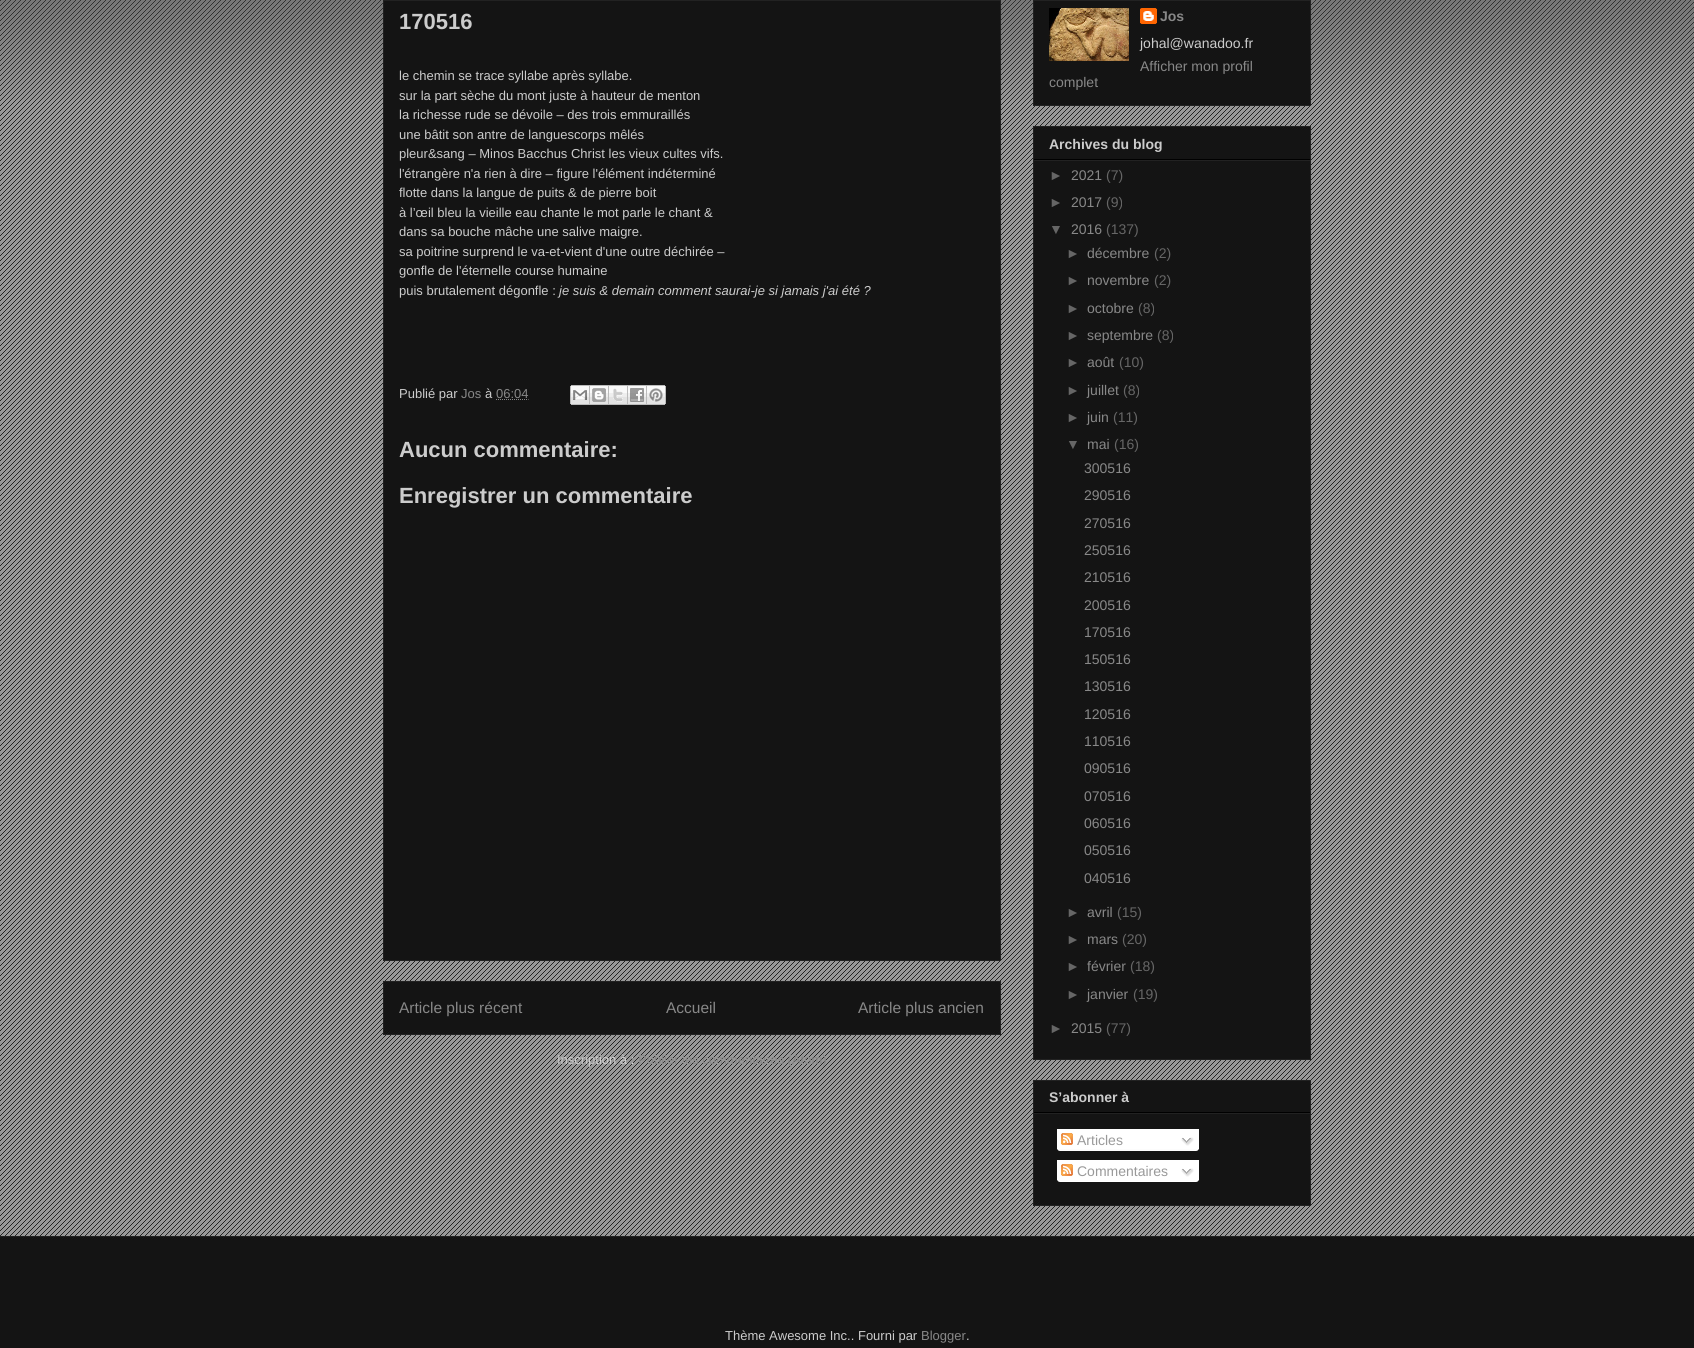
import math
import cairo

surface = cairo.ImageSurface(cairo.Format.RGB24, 1694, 1348)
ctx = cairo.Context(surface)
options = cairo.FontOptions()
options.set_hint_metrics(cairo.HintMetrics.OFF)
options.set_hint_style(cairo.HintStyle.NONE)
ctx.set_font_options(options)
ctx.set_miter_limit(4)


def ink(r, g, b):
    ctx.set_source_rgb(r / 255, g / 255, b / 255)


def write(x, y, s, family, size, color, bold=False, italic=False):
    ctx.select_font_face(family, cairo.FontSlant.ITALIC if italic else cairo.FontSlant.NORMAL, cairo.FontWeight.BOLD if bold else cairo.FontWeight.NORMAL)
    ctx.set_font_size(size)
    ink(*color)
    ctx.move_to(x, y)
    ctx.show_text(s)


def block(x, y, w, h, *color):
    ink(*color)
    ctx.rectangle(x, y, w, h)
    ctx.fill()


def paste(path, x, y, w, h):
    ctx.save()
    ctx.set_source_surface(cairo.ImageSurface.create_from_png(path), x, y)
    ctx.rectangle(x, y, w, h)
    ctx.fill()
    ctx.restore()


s1 = dict(family="Liberation Sans", size=22, color=(204, 204, 204), bold=True)
s2 = dict(family="Liberation Sans", size=13, color=(204, 204, 204))
s3 = dict(family="Liberation Sans", size=13, color=(204, 204, 204), italic=True)
s4 = dict(family="Liberation Sans", size=13, color=(136, 136, 136))
s5 = dict(family="Liberation Sans", size=15.5, color=(136, 136, 136))
s6 = dict(family="Liberation Sans", size=14, color=(136, 136, 136), bold=True)
s7 = dict(family="Liberation Sans", size=14, color=(204, 204, 204))
s8 = dict(family="Liberation Sans", size=14, color=(136, 136, 136))
s9 = dict(family="Liberation Sans", size=14, color=(204, 204, 204), bold=True)
s10 = dict(family="Liberation Sans", size=14, color=(102, 102, 102))
s11 = dict(family="Liberation Sans", size=14, color=(153, 153, 153))

ink(153, 153, 153)
ctx.paint()
paste("pic1.png", 0, 0, 1694, 1236)
paste("pic2.png", 0, 0, 1694, 100)
block(384, 1, 616, 959, 20, 20, 20)
ctx.rectangle(383.5, -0.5, 617, 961)
ink(34, 34, 34)
ctx.set_line_width(1)
ctx.stroke()
block(384, 0, 616, 1, 34, 34, 34)
write(399, 29, "170516", **s1)
write(399, 80, "le chemin se trace syllabe après syllabe.", **s2)
write(399, 100, "sur la part sèche du mont juste à hauteur de menton", **s2)
write(399, 119, "la richesse rude se dévoile – des trois emmuraillés", **s2)
write(399, 139, "une bâtit son antre de languescorps mêlés", **s2)
write(399, 158, "pleur&sang – Minos Bacchus Christ les vieux cultes vifs.", **s2)
write(399, 178, "l'étrangère n'a rien à dire – figure l'élément indéterminé", **s2)
write(399, 197, "flotte dans la langue de puits & de pierre boit", **s2)
write(399, 217, "à l’œil bleu la vieille eau chante le mot parle le chant &", **s2)
write(399, 236, "dans sa bouche mâche une salive maigre.", **s2)
write(399, 256, "sa poitrine surprend le va-et-vient d'une outre déchirée –", **s2)
write(399, 275, "gonfle de l'éternelle course humaine", **s2)
write(399, 295, "puis brutalement dégonfle :", **s2)
write(559, 295, "je suis & demain comment saurai-je si jamais j'ai été ?", **s3)
write(399, 398, "Publié par", **s2)
write(461, 398, "Jos", **s4)
write(485, 398, "à", **s2)
write(496, 398, "06:04", **s4)
ctx.new_path()
ctx.move_to(496, 399.5)
ctx.line_to(528.5, 399.5)
ctx.set_dash([1, 1])
ctx.stroke()
paste("pic3.png", 570, 385, 20, 20)
paste("pic4.png", 590, 385, 19, 20)
paste("pic5.png", 609, 385, 19, 20)
paste("pic6.png", 628, 385, 19, 20)
paste("pic7.png", 647, 385, 19, 20)
write(399, 457, "Aucun commentaire:", **s1)
write(399, 503, "Enregistrer un commentaire", **s1)
ink(20, 20, 20)
ctx.rectangle(383.5, 981.5, 617, 53)
ctx.fill_preserve()
ink(34, 34, 34)
ctx.set_dash([])
ctx.stroke()
write(399, 1013, "Article plus récent", **s5)
write(666, 1013, "Accueil", **s5)
write(858, 1013, "Article plus ancien", **s5)
write(557, 1064, "Inscription à :", **s2)
write(638, 1064, "Publier les commentaires (Atom)", **s4)
block(1034, 1, 276, 104, 20, 20, 20)
ctx.rectangle(1033.5, -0.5, 277, 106)
ink(34, 34, 34)
ctx.stroke()
block(1034, 0, 276, 1, 34, 34, 34)
paste("pic8.png", 1049, 8, 80, 53)
paste("pic9.png", 1140, 8, 17, 16)
write(1160, 21, "Jos", **s6)
write(1140, 48, "johal@wanadoo.fr", **s7)
write(1140, 71, "Afficher mon profil", **s8)
write(1049, 87, "complet", **s8)
ink(20, 20, 20)
ctx.rectangle(1033.5, 126.5, 277, 933)
ctx.fill_preserve()
ink(34, 34, 34)
ctx.stroke()
block(1034, 159, 276, 1, 0, 0, 0)
write(1049, 149, "Archives du blog", **s9)
block(1034, 160, 276, 1, 34, 34, 34)
write(1049, 180, "►", **s10)
write(1071, 180, "2021", **s8)
write(1106, 180, "(7)", **s10)
write(1049, 207, "►", **s10)
write(1071, 207, "2017", **s8)
write(1106, 207, "(9)", **s10)
write(1049, 234, "▼", **s10)
write(1071, 234, "2016", **s8)
write(1106, 234, "(137)", **s10)
write(1066, 258, "►", **s10)
write(1087, 258, "décembre", **s8)
write(1154, 258, "(2)", **s10)
write(1066, 285, "►", **s10)
write(1087, 285, "novembre", **s8)
write(1154, 285, "(2)", **s10)
write(1066, 313, "►", **s10)
write(1087, 313, "octobre", **s8)
write(1138, 313, "(8)", **s10)
write(1066, 340, "►", **s10)
write(1087, 340, "septembre", **s8)
write(1157, 340, "(8)", **s10)
write(1066, 367, "►", **s10)
write(1087, 367, "août", **s8)
write(1119, 367, "(10)", **s10)
write(1066, 395, "►", **s10)
write(1087, 395, "juillet", **s8)
write(1123, 395, "(8)", **s10)
write(1066, 422, "►", **s10)
write(1087, 422, "juin", **s8)
write(1113, 422, "(11)", **s10)
write(1066, 449, "▼", **s10)
write(1087, 449, "mai", **s8)
write(1114, 449, "(16)", **s10)
write(1084, 473, "300516", **s8)
write(1084, 500, "290516", **s8)
write(1084, 528, "270516", **s8)
write(1084, 555, "250516", **s8)
write(1084, 582, "210516", **s8)
write(1084, 610, "200516", **s8)
write(1084, 637, "170516", **s8)
write(1084, 664, "150516", **s8)
write(1084, 691, "130516", **s8)
write(1084, 719, "120516", **s8)
write(1084, 746, "110516", **s8)
write(1084, 773, "090516", **s8)
write(1084, 801, "070516", **s8)
write(1084, 828, "060516", **s8)
write(1084, 855, "050516", **s8)
write(1084, 883, "040516", **s8)
write(1066, 917, "►", **s10)
write(1087, 917, "avril", **s8)
write(1117, 917, "(15)", **s10)
write(1066, 944, "►", **s10)
write(1087, 944, "mars", **s8)
write(1122, 944, "(20)", **s10)
write(1066, 971, "►", **s10)
write(1087, 971, "février", **s8)
write(1130, 971, "(18)", **s10)
write(1066, 999, "►", **s10)
write(1087, 999, "janvier", **s8)
write(1133, 999, "(19)", **s10)
write(1049, 1033, "►", **s10)
write(1071, 1033, "2015", **s8)
write(1106, 1033, "(77)", **s10)
ink(20, 20, 20)
ctx.rectangle(1033.5, 1080.5, 277, 125)
ctx.fill_preserve()
ink(34, 34, 34)
ctx.stroke()
block(1034, 1112, 276, 1, 0, 0, 0)
write(1049, 1102, "S’abonner à", **s9)
block(1034, 1113, 276, 1, 34, 34, 34)
block(1057, 1129, 142, 20, 255, 255, 255)
paste("pic10.png", 1061, 1133, 12, 12)
write(1077, 1145, "Articles", **s11)
paste("pic11.png", 1181, 1137, 13, 9)
paste("pic12.png", 1057, 1149, 142, 2)
block(1057, 1160, 142, 20, 255, 255, 255)
paste("pic10.png", 1061, 1164, 12, 12)
write(1077, 1176, "Commentaires", **s11)
paste("pic11.png", 1181, 1168, 13, 9)
paste("pic12.png", 1057, 1180, 142, 2)
block(0, 1237, 1694, 111, 20, 20, 20)
block(0, 1236, 1694, 1, 34, 34, 34)
write(725, 1340, "Thème Awesome Inc.. Fourni par", **s2)
write(921, 1340, "Blogger", **s4)
write(966, 1340, ".", **s2)
surface.write_to_png("screenshot.png")
